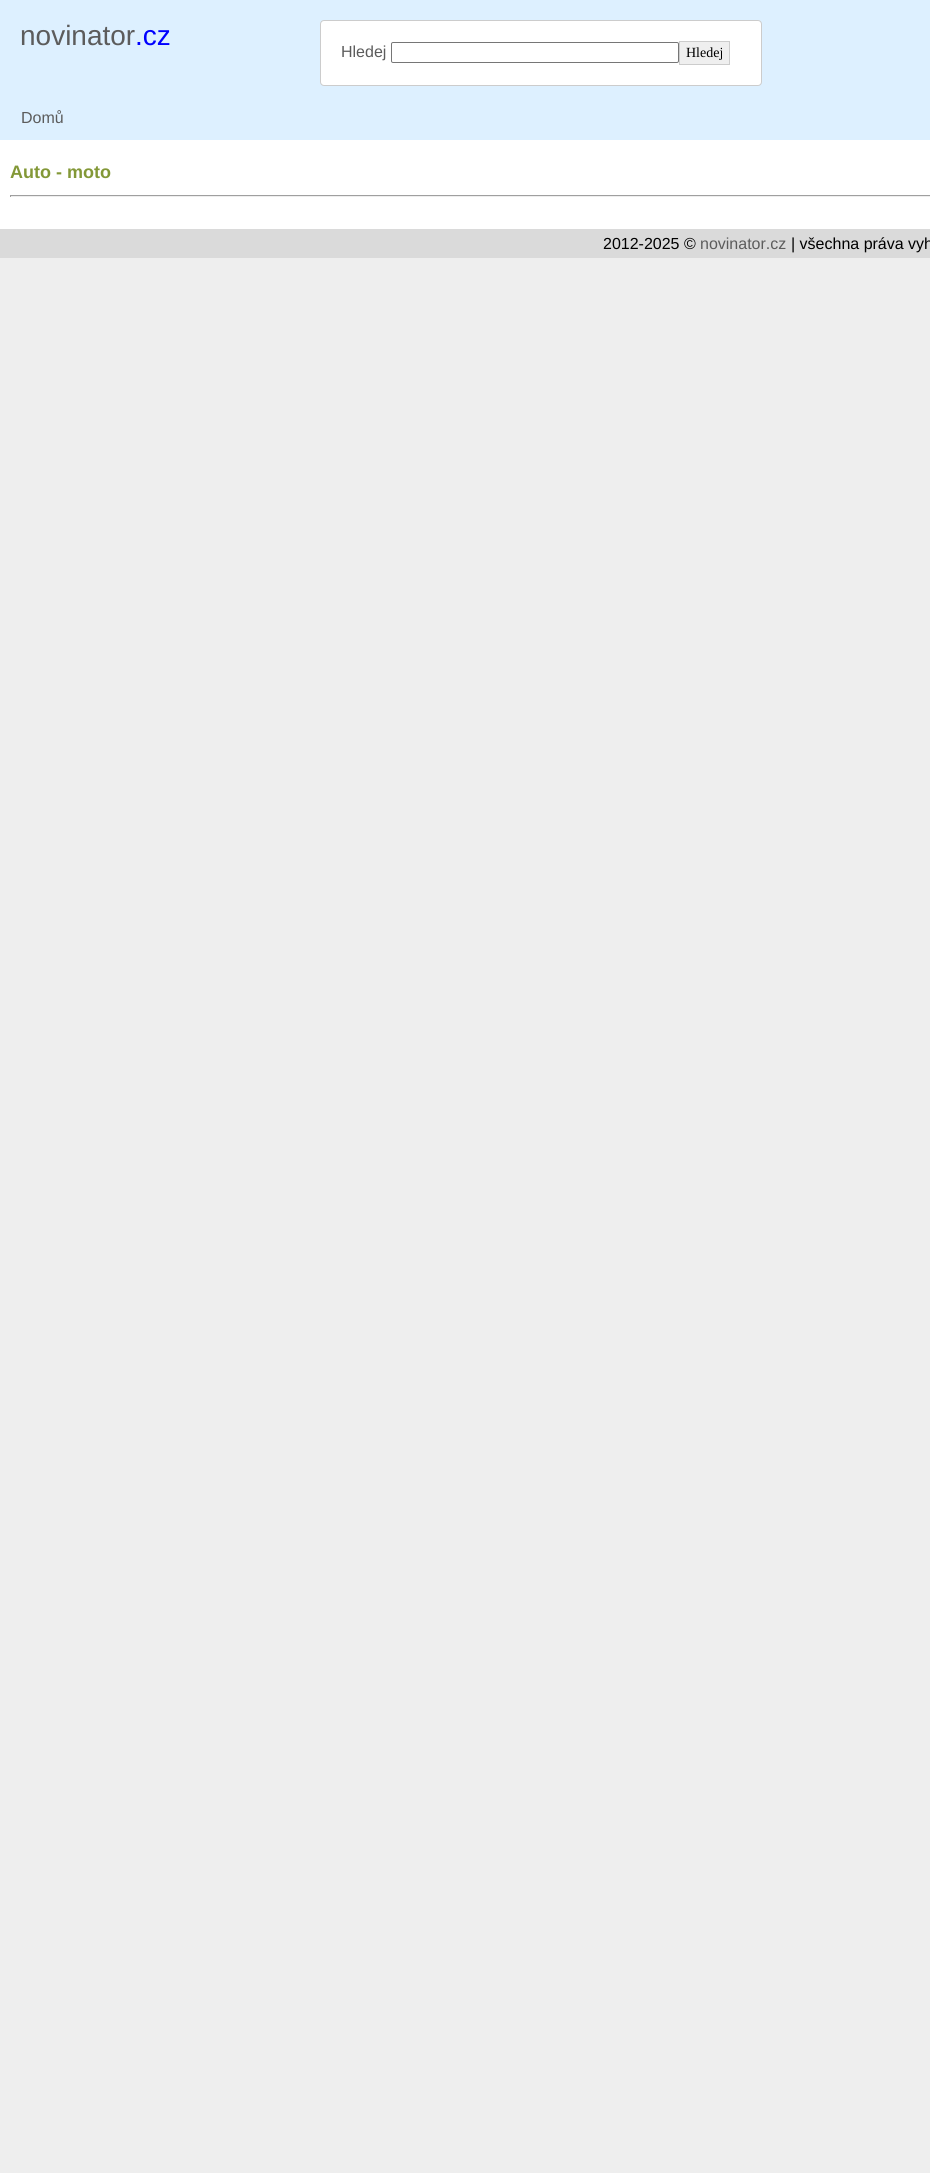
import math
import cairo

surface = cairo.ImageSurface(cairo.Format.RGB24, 930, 2173)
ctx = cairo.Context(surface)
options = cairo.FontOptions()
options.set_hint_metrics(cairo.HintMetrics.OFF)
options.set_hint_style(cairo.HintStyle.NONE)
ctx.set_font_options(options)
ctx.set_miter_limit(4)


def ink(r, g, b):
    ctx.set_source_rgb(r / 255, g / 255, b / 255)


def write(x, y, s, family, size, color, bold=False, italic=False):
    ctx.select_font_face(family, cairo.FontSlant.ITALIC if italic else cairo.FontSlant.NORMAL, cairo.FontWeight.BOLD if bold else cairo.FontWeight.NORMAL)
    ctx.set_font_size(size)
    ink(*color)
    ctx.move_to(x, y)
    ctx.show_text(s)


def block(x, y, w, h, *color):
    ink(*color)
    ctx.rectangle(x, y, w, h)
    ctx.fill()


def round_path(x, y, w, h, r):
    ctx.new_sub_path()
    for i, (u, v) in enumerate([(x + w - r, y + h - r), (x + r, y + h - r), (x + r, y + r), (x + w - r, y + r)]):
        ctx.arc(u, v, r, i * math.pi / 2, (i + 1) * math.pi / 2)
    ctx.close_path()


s1 = dict(family="Liberation Sans", size=28, color=(92, 92, 92))
s2 = dict(family="Liberation Sans", size=28, color=(0, 0, 255))
s3 = dict(family="Liberation Sans", size=16, color=(92, 92, 92))
s4 = dict(family="Liberation Serif", size=14, color=(0, 0, 0))
s5 = dict(family="Liberation Sans", size=18, color=(131, 152, 55), bold=True)
s6 = dict(family="Liberation Sans", size=16, color=(0, 0, 0))

ink(238, 238, 238)
ctx.paint()
block(0, 140, 930, 89, 255, 255, 255)
block(0, 0, 930, 140, 221, 240, 255)
write(20, 45, "novinator", **s1)
write(135, 45, ".cz", **s2)
ink(255, 255, 255)
round_path(320.5, 20.5, 441, 65, 3.5)
ctx.fill_preserve()
ink(204, 204, 204)
ctx.set_line_width(1)
ctx.stroke()
write(341, 57, "Hledej", **s3)
round_path(391.5, 42.5, 287, 20, 1.5)
ink(118, 118, 118)
ctx.stroke()
ink(239, 239, 239)
ctx.rectangle(679.5, 41.5, 50, 23)
ctx.fill_preserve()
ink(204, 204, 204)
ctx.stroke()
write(686, 57, "Hledej", **s4)
write(21, 123, "Domů", **s3)
write(10, 178, "Auto - moto", **s5)
block(10, 195, 920, 1, 159, 159, 159)
block(10, 196, 920, 1, 238, 238, 238)
block(10, 195, 1, 2, 159, 159, 159)
block(0, 229, 930, 29, 218, 218, 218)
write(603, 249, "2012-2025 ©", **s6)
write(700, 249, "novinator.cz", **s3)
write(791, 249, "| všechna práva vyh", **s6)
surface.write_to_png("screenshot.png")
